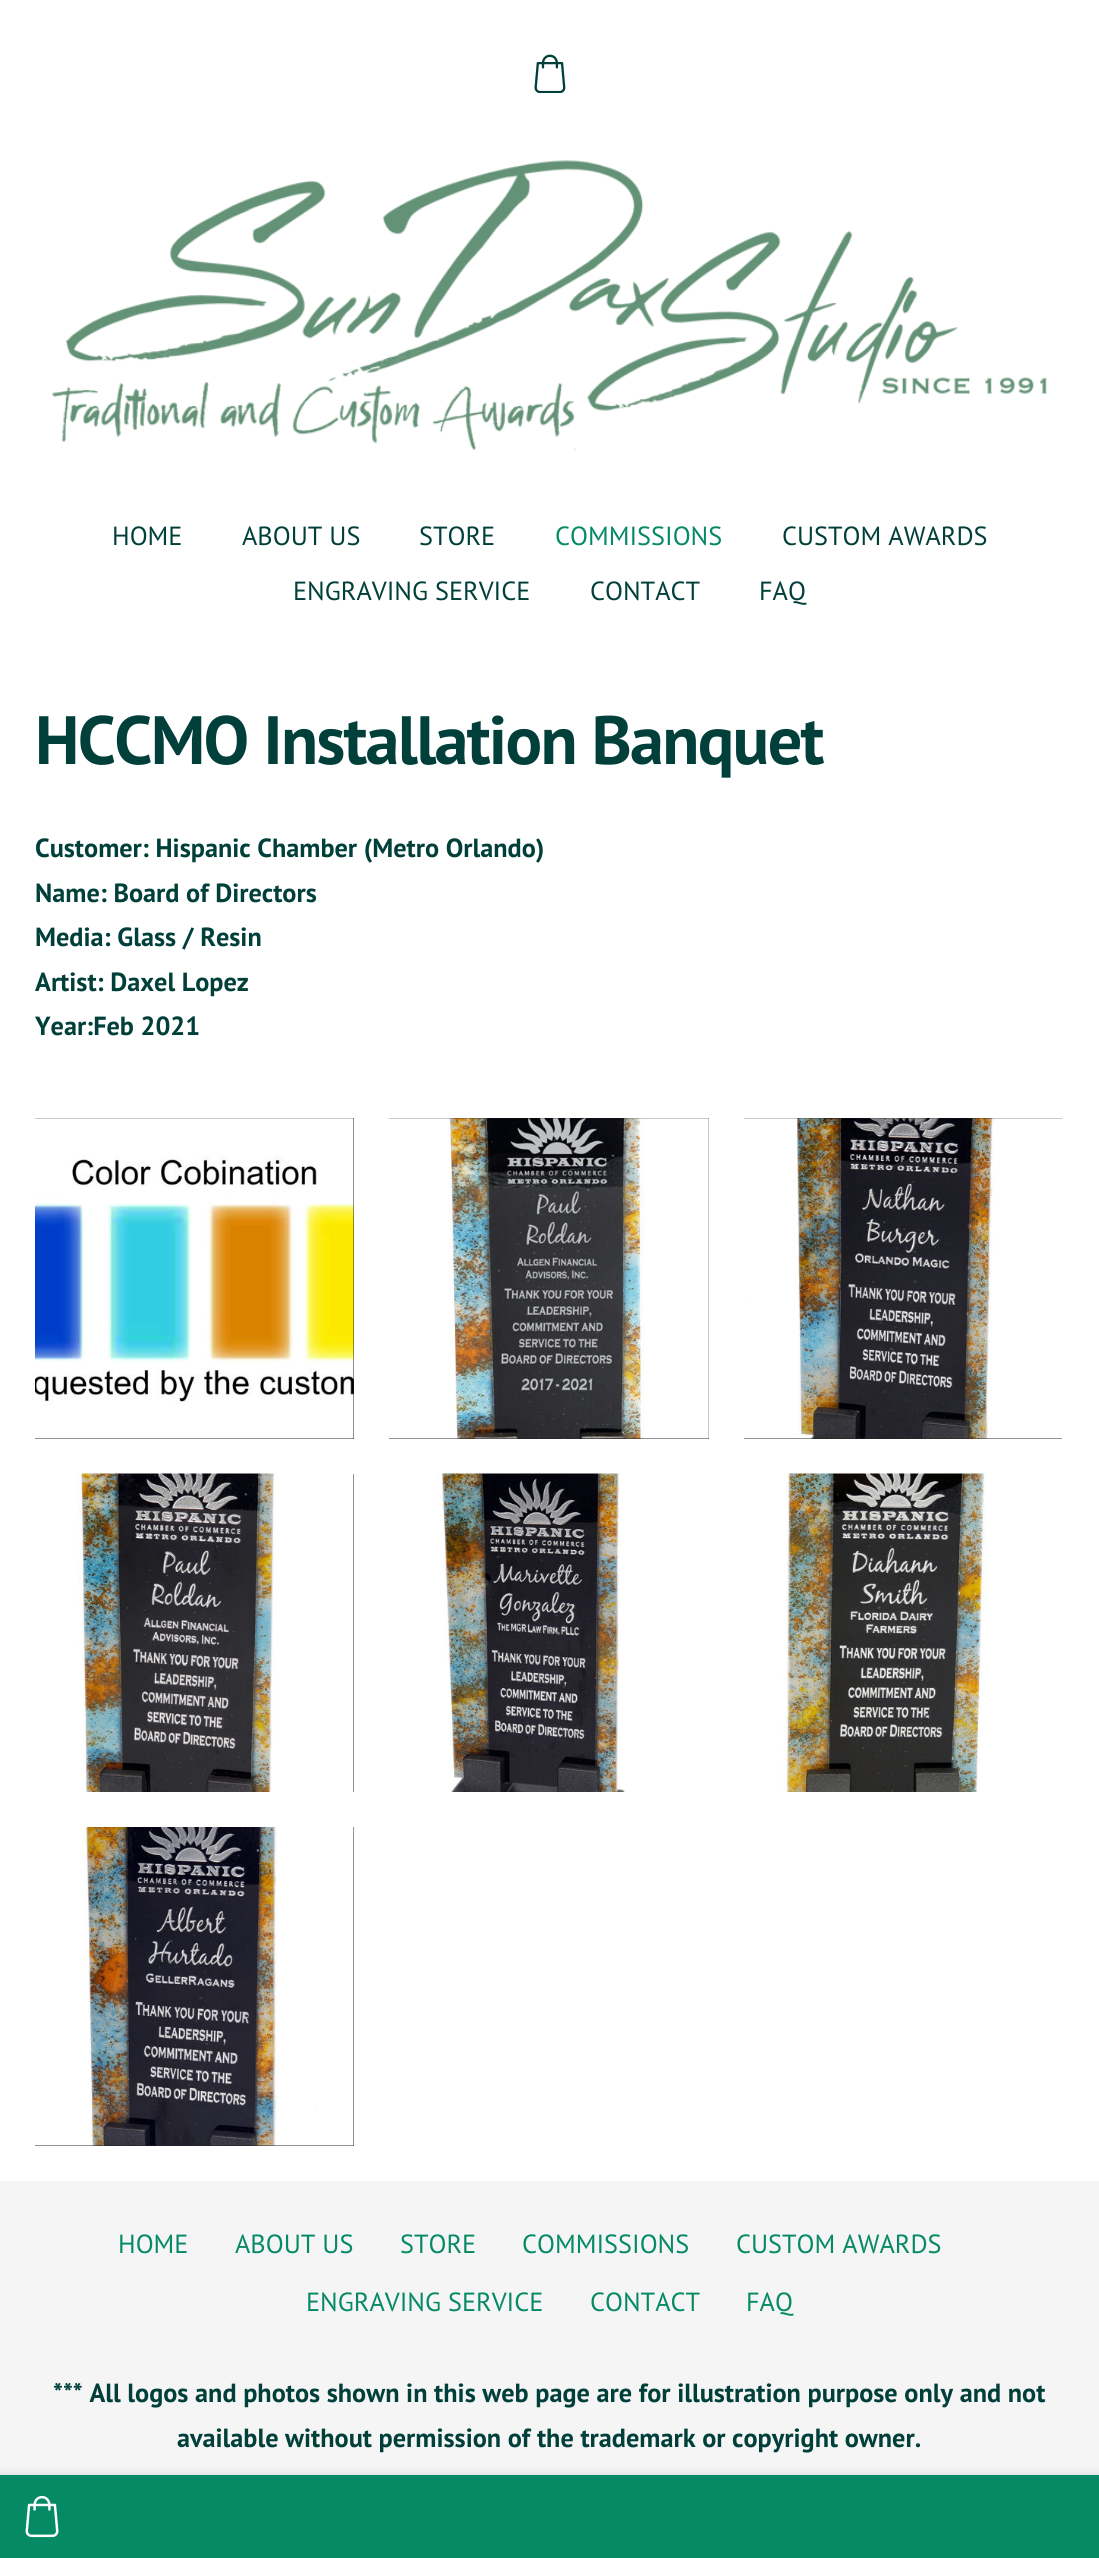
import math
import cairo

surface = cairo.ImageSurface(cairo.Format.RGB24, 1099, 2558)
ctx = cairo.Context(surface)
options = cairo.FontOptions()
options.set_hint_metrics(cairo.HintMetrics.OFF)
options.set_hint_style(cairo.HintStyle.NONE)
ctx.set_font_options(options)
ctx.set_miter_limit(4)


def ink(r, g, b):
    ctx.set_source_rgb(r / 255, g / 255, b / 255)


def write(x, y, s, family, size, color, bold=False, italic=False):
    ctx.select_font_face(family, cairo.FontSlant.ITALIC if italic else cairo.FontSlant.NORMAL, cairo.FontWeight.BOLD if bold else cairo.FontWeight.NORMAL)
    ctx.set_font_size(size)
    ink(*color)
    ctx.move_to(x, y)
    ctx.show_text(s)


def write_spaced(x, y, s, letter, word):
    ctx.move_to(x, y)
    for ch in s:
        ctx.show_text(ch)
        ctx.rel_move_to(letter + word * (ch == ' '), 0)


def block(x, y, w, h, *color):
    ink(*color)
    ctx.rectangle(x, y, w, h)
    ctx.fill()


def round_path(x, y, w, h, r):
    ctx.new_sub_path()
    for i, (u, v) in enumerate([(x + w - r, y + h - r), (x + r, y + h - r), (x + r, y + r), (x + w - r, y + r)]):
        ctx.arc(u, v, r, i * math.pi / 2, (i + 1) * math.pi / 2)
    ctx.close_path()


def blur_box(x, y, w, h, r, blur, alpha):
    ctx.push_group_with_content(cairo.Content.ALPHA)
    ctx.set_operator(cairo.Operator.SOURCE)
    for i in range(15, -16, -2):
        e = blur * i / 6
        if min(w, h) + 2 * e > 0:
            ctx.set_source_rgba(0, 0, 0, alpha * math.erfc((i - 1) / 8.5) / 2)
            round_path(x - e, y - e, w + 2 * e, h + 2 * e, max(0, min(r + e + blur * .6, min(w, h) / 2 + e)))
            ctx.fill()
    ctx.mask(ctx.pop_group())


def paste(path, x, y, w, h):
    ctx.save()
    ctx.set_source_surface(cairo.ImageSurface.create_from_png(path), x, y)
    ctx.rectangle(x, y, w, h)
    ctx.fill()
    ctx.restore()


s1 = dict(family="PT Sans", size=26.25, color=(1, 64, 58))
s2 = dict(family="PT Sans", size=26.25, color=(6, 138, 101))
s3 = dict(family="PT Sans", size=26.25, color=(1, 64, 58), bold=True)

ink(245, 245, 245)
ctx.paint()
block(0, 0, 1099, 2181, 255, 255, 255)
paste("pic1.png", 534, 54, 32, 39)
paste("pic2.png", 52, 160, 995, 291)
write(112, 545, "HOME", **s1)
write(242, 545, "ABOUT US", **s1)
write(419, 545, "STORE", **s1)
write(555, 545, "COMMISSIONS", **s2)
write(782, 545, "CUSTOM AWARDS", **s1)
write(293, 600, "ENGRAVING SERVICE", **s1)
write(590, 600, "CONTACT", **s1)
write(759, 600, "FAQ", **s1)
ctx.select_font_face("PT Sans", cairo.FontSlant.NORMAL, cairo.FontWeight.BOLD)
ctx.set_font_size(68.25)
write_spaced(35, 764, "HCCMO Installation Banquet", -1.7, 0)
write(35, 857, "Customer: Hispanic Chamber (Metro Orlando)", **s3)
write(35, 902, "Name: Board of Directors", **s3)
write(35, 946, "Media: Glass / Resin", **s3)
write(35, 991, "Artist: Daxel Lopez", **s3)
write(35, 1035, "Year:Feb 2021", **s3)
block(35, 1118, 319, 321, 34, 34, 34)
paste("pic3.png", 35, 1118, 319, 321)
block(389, 1118, 320, 321, 34, 34, 34)
paste("pic4.png", 389, 1118, 320, 321)
block(744, 1118, 318, 321, 34, 34, 34)
paste("pic5.png", 744, 1118, 318, 321)
block(353, 1474, 1, 318, 34, 34, 34)
paste("pic6.png", 35, 1473, 319, 319)
paste("pic7.png", 389, 1473, 320, 319)
paste("pic8.png", 744, 1473, 318, 319)
block(35, 1827, 319, 319, 34, 34, 34)
paste("pic9.png", 35, 1827, 319, 319)
ink(0, 0, 0)
blur_box(-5, 2473, 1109, 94, 0, 4.5, 0.1)
block(0, 2475, 1099, 83, 6, 138, 101)
paste("pic10.png", 25, 2495, 34, 43)
write(118, 2253, "HOME", **s2)
write(235, 2253, "ABOUT US", **s2)
write(400, 2253, "STORE", **s2)
write(522, 2253, "COMMISSIONS", **s2)
write(736, 2253, "CUSTOM AWARDS", **s2)
write(306, 2311, "ENGRAVING SERVICE", **s2)
write(590, 2311, "CONTACT", **s2)
write(746, 2311, "FAQ", **s2)
write(53, 2402, "*** All logos and photos shown in this web page are for illustration purpose only and not", **s3)
write(177, 2447, "available without permission of the trademark or copyright owner.", **s3)
surface.write_to_png("screenshot.png")
